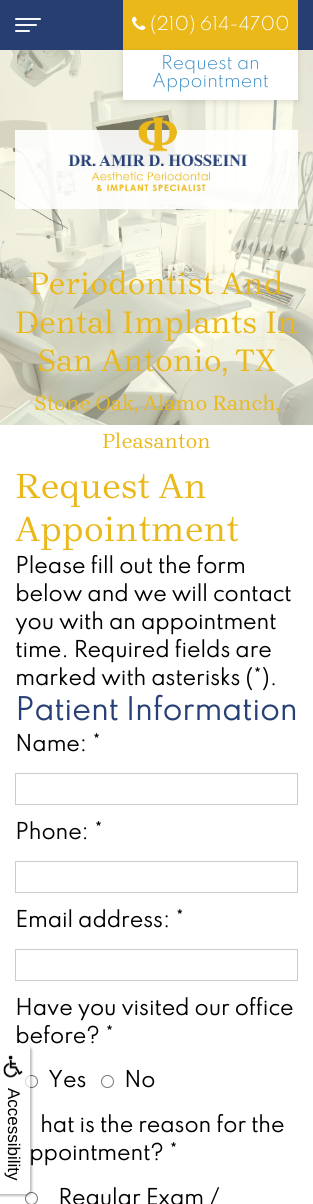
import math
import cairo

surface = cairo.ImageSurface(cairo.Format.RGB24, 313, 1204)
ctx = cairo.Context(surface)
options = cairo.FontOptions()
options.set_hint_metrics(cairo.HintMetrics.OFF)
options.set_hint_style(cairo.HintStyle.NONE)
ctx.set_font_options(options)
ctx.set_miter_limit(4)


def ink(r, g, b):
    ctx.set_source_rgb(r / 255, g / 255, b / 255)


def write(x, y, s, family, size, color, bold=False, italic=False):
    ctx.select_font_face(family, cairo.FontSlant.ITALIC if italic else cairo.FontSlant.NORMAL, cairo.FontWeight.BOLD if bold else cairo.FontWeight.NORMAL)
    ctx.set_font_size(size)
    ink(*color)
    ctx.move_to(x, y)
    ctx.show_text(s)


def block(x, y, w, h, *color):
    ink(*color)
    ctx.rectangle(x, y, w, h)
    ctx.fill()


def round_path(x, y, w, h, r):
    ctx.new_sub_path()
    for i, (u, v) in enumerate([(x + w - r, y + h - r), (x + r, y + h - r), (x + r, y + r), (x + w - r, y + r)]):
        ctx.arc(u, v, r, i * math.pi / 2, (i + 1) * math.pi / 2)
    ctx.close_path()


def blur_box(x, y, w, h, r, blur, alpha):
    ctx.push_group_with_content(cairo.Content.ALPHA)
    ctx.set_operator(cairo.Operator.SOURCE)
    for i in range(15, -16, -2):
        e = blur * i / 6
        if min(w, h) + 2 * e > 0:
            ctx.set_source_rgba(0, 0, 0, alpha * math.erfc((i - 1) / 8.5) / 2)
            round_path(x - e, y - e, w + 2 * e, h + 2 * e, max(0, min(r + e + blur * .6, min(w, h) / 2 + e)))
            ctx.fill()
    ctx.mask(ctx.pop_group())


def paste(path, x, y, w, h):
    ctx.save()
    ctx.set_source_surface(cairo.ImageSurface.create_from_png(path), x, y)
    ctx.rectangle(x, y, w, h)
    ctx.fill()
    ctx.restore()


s1 = dict(family="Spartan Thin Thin", size=17, color=(255, 255, 255))
s2 = dict(family="Spartan Thin Thin", size=17, color=(59, 142, 198))
s3 = dict(family="Brygada 1918", size=32, color=(234, 184, 25))
s4 = dict(family="Brygada 1918", size=21.1, color=(234, 184, 25))
s5 = dict(family="Liberation Sans", size=17, color=(0, 0, 0))
s6 = dict(family="Brygada 1918", size=36, color=(234, 184, 25))
s7 = dict(family="Spartan Thin", size=20, color=(0, 0, 0), bold=True)
s8 = dict(family="Spartan Thin", size=28, color=(39, 64, 117), bold=True)

ink(255, 255, 255)
ctx.paint()
block(0, 0, 313, 50, 38, 62, 113)
ink(247, 247, 247)
round_path(15, 18, 26, 2, 1)
ctx.fill()
round_path(15, 24, 22, 2, 1)
ctx.fill()
round_path(15, 30, 15, 2, 1)
ctx.fill()
block(123, 0, 175, 50, 234, 184, 25)
paste("pic1.png", 132, 16, 14, 14)
write(150, 30, "(210) 614-4700", **s1)
paste("pic2.png", 0, 50, 313, 375)
ink(0, 0, 0)
blur_box(123, 52, 175, 50, 0, 3.5, 0.12)
block(123, 50, 175, 50, 255, 255, 255)
write(161, 69, "Request an", **s2)
write(152, 87, "Appointment", **s2)
ctx.set_source_rgba(1, 1, 1, 0.9)
ctx.rectangle(15, 130, 283, 79)
ctx.fill()
paste("pic3.png", 68, 117, 180, 75)
write(29, 294, "Periodontist And", **s3)
write(15, 333, "Dental Implants In", **s3)
write(37, 371, "San Antonio, TX", **s3)
write(34, 410, "Stone Oak, Alamo Ranch,", **s4)
write(102, 448, "Pleasanton", **s4)
ctx.new_path()
ctx.arc(31.5, 1081.5, 6, 0, 2 * math.pi)
ink(118, 118, 118)
ctx.set_line_width(1)
ctx.stroke()
ctx.arc(31.5, 1198.5, 6, 0, 2 * math.pi)
ctx.stroke()
ctx.save()
ctx.set_fill_rule(cairo.FillRule.EVEN_ODD)
ctx.new_path()
ctx.move_to(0, 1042)
ctx.line_to(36, 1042)
ctx.line_to(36, 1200)
ctx.line_to(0, 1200)
ctx.close_path()
ctx.move_to(-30, 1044)
ctx.line_to(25, 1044)
ctx.curve_to(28, 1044, 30, 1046, 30, 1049)
ctx.line_to(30, 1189)
ctx.curve_to(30, 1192, 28, 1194, 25, 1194)
ctx.line_to(-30, 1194)
ctx.close_path()
ctx.clip()
ink(0, 0, 0)
blur_box(-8, 1046, 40, 150, 5, 1, 0.25)
ctx.restore()
ctx.set_source_rgba(1, 1, 1, 0.7)
ctx.new_path()
ctx.move_to(-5, 1044)
ctx.line_to(25, 1044)
ctx.curve_to(28, 1044, 30, 1046, 30, 1049)
ctx.line_to(30, 1189)
ctx.curve_to(30, 1192, 28, 1194, 25, 1194)
ctx.line_to(-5, 1194)
ctx.close_path()
ctx.fill()
paste("pic4.png", 3, 1055, 20, 23)
ctx.save()
ctx.translate(8, 1088)
ctx.rotate(90 * math.pi / 180)
write(0, 0, "Accessibility", **s5)
ctx.restore()
write(15, 498, "Request An", **s6)
write(15, 541, "Appointment", **s6)
write(15, 573, "Please fill out the form", **s7)
write(15, 601, "below and we will contact", **s7)
write(15, 629, "you with an appointment", **s7)
write(15, 657, "time. Required fields are", **s7)
write(15, 685, "marked with asterisks (*).", **s7)
write(15, 720, "Patient Information", **s8)
write(15, 751, "Name: *", **s7)
ctx.rectangle(15.5, 773.5, 282, 31)
ink(204, 204, 204)
ctx.stroke()
write(15, 839, "Phone: *", **s7)
ctx.rectangle(15.5, 861.5, 282, 31)
ink(204, 204, 204)
ctx.stroke()
write(15, 927, "Email address: *", **s7)
ctx.rectangle(15.5, 949.5, 282, 31)
ink(204, 204, 204)
ctx.stroke()
write(15, 1015, "Have you visited our office", **s7)
write(15, 1043, "before? *", **s7)
write(48, 1087, "Yes", **s7)
ctx.new_path()
ctx.arc(107.5, 1081.5, 6, 0, 2 * math.pi)
ink(118, 118, 118)
ctx.stroke()
write(124, 1087, "No", **s7)
write(40, 1132, "hat is the reason for the", **s7)
write(29, 1160, "ppointment? *", **s7)
write(58, 1205, "Regular Exam /", **s7)
surface.write_to_png("screenshot.png")
